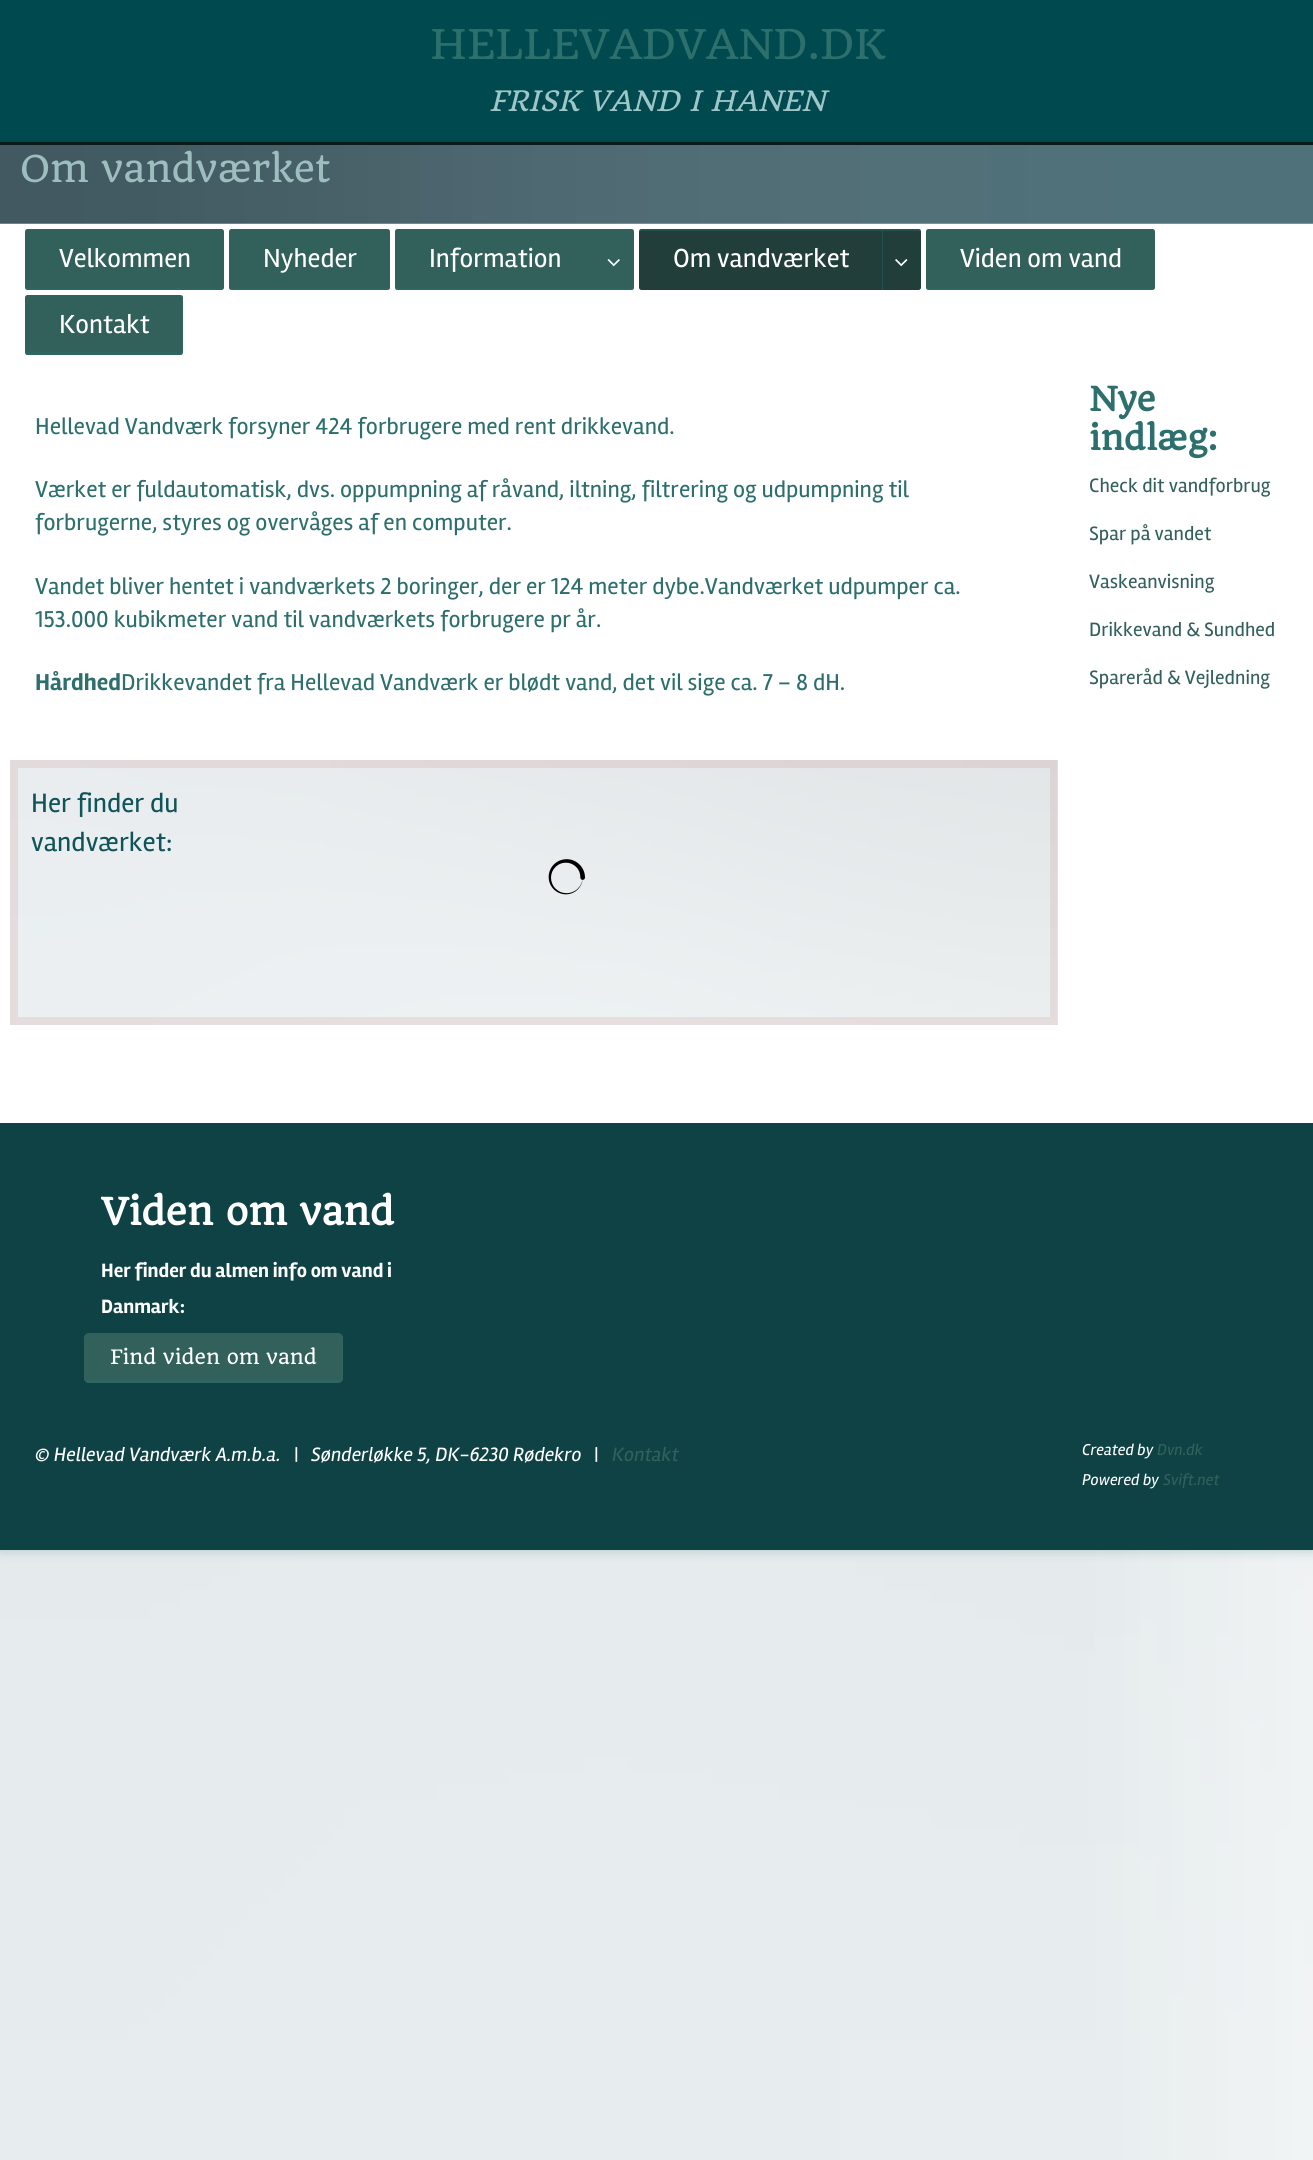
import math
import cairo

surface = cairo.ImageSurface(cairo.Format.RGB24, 1313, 2160)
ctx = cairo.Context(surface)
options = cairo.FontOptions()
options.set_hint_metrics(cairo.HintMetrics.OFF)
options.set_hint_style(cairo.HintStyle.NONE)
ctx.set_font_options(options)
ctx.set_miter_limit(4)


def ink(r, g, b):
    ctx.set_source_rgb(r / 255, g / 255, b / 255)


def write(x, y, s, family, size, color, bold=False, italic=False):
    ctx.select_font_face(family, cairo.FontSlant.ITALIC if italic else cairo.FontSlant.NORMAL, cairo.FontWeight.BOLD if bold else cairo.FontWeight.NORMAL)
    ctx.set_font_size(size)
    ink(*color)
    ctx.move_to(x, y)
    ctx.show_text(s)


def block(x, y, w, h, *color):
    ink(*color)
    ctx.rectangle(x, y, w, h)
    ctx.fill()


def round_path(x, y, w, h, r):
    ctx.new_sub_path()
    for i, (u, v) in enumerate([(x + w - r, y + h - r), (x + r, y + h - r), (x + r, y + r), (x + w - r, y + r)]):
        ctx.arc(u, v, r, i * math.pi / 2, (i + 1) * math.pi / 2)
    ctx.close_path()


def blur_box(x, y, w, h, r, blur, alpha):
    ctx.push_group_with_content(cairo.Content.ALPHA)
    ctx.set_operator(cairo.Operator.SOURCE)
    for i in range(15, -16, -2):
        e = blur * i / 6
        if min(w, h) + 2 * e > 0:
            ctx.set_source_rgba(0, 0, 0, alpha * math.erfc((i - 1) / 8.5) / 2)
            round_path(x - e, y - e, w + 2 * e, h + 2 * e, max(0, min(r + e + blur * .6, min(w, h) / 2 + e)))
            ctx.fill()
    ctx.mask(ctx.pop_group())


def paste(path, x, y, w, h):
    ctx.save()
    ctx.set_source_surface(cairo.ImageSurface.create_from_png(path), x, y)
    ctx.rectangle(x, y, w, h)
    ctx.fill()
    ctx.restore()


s1 = dict(family="Quando", size=40, color=(44, 111, 108))
s2 = dict(family="Quando", size=27.5, color=(158, 198, 201), italic=True)
s3 = dict(family="Quando", size=36.25, color=(157, 189, 191))
s4 = dict(family="Rambla", size=27, color=(255, 255, 255))
s5 = dict(family="Rambla", size=23.75, color=(44, 111, 108))
s6 = dict(family="Rambla", size=23.75, color=(44, 111, 108), bold=True)
s7 = dict(family="Rambla", size=27.5, color=(16, 83, 88))
s8 = dict(family="Quando", size=32.5, color=(44, 111, 108), bold=True)
s9 = dict(family="Rambla", size=20, color=(50, 96, 91))
s10 = dict(family="Quando", size=36.25, color=(255, 255, 255), bold=True)
s11 = dict(family="Rambla", size=20, color=(255, 255, 255), bold=True)
s12 = dict(family="Quando", size=19.4, color=(255, 255, 255))
s13 = dict(family="Rambla", size=20, color=(255, 255, 255), italic=True)
s14 = dict(family="Rambla", size=20, color=(255, 255, 255))
s15 = dict(family="Rambla", size=20, color=(50, 96, 91), italic=True)
s16 = dict(family="Rambla", size=16.25, color=(255, 255, 255), italic=True)
s17 = dict(family="Rambla", size=16.25, color=(50, 96, 91), italic=True)

ink(250, 250, 250)
ctx.paint()
paste("pic6.png", 0, 1550, 1313, 610)
ink(44, 111, 108)
blur_box(0, 0, 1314, 1550, 0, 6, 0.3)
block(0, 223, 1313, 900, 255, 255, 255)
block(0, 0, 1313, 142, 0, 73, 78)
ink(10, 26, 27)
ctx.new_path()
ctx.move_to(0, 142)
ctx.line_to(0, 146)
ctx.line_to(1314, 146)
ctx.line_to(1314, 23)
ctx.line_to(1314, 142)
ctx.close_path()
ctx.fill()
write(430, 59, "HELLEVADVAND.DK", **s1)
write(489, 111, "FRISK VAND I HANEN", **s2)
paste("pic1.png", 0, 145, 1313, 79)
write(20, 182, "Om vandværket", **s3)
ink(50, 96, 91)
round_path(25, 229, 199, 61, 2.5)
ctx.fill()
ctx.set_source_rgba(0.173, 0.435, 0.424, 0.4)
ctx.new_path()
ctx.move_to(25, 285)
ctx.curve_to(25, 287, 25, 290, 28, 290)
ctx.line_to(222, 290)
ctx.curve_to(224, 290, 224, 287, 224, 285)
ctx.curve_to(224, 286, 223, 288, 221, 288)
ctx.line_to(28, 288)
ctx.curve_to(26, 288, 25, 286, 25, 285)
ctx.close_path()
ctx.fill()
write(59, 267, "Velkommen", **s4)
ink(50, 96, 91)
round_path(229, 229, 161, 61, 2.5)
ctx.fill()
ctx.set_source_rgba(0.173, 0.435, 0.424, 0.4)
ctx.new_path()
ctx.move_to(229, 285)
ctx.line_to(229, 288)
ctx.curve_to(229, 289, 230, 290, 232, 290)
ctx.line_to(388, 290)
ctx.curve_to(389, 290, 390, 289, 390, 288)
ctx.line_to(390, 285)
ctx.curve_to(390, 286, 389, 288, 388, 288)
ctx.line_to(231, 288)
ctx.curve_to(230, 288, 229, 286, 229, 285)
ctx.close_path()
ctx.fill()
write(263, 267, "Nyheder", **s4)
ink(50, 96, 91)
ctx.new_path()
ctx.move_to(397.5, 229)
ctx.line_to(595, 229)
ctx.line_to(595, 290)
ctx.line_to(397.5, 290)
ctx.curve_to(396, 290, 395, 289, 395, 287.5)
ctx.line_to(395, 231.5)
ctx.curve_to(395, 230, 396, 229, 397.5, 229)
ctx.close_path()
ctx.fill()
ctx.set_source_rgba(0.173, 0.435, 0.424, 0.4)
ctx.new_path()
ctx.move_to(395, 285)
ctx.curve_to(395, 287, 395, 290, 398, 290)
ctx.line_to(595, 290)
ctx.line_to(595, 288)
ctx.line_to(398, 288)
ctx.curve_to(396, 288, 395, 286, 395, 285)
ctx.close_path()
ctx.fill()
write(429, 267, "Information", **s4)
ink(50, 96, 91)
ctx.new_path()
ctx.move_to(595, 229)
ctx.line_to(631.5, 229)
ctx.curve_to(633, 229, 634, 230, 634, 231.5)
ctx.line_to(634, 287.5)
ctx.curve_to(634, 289, 633, 290, 631.5, 290)
ctx.line_to(595, 290)
ctx.close_path()
ctx.fill()
ctx.set_source_rgba(0.173, 0.435, 0.424, 0.4)
ctx.new_path()
ctx.move_to(595, 288)
ctx.line_to(595, 290)
ctx.line_to(631.5, 290)
ctx.curve_to(633, 290, 634, 289, 634, 287.5)
ctx.line_to(634, 285)
ctx.curve_to(634, 286, 633, 288, 631, 288)
ctx.close_path()
ctx.fill()
paste("pic2.png", 607, 259, 13, 8)
ink(33, 62, 59)
ctx.new_path()
ctx.move_to(641.5, 229)
ctx.line_to(883, 229)
ctx.line_to(883, 290)
ctx.line_to(641.5, 290)
ctx.curve_to(640, 290, 639, 289, 639, 287.5)
ctx.line_to(639, 231.5)
ctx.curve_to(639, 230, 640, 229, 641.5, 229)
ctx.close_path()
ctx.fill()
ctx.set_source_rgba(0.173, 0.435, 0.424, 0.4)
ctx.new_path()
ctx.move_to(641, 231)
ctx.line_to(882, 231)
ctx.line_to(882, 290)
ctx.line_to(883, 290)
ctx.line_to(883, 229)
ctx.line_to(642, 229)
ctx.curve_to(639, 229, 639, 232, 639, 234)
ctx.curve_to(639, 232, 640, 231, 641, 231)
ctx.close_path()
ctx.fill()
write(673, 267, "Om vandværket", **s4)
ink(33, 62, 59)
ctx.new_path()
ctx.move_to(883, 229)
ctx.line_to(918.5, 229)
ctx.curve_to(920, 229, 921, 230, 921, 231.5)
ctx.line_to(921, 287.5)
ctx.curve_to(921, 289, 920, 290, 918.5, 290)
ctx.line_to(883, 290)
ctx.close_path()
ctx.fill()
ctx.set_source_rgba(0.173, 0.435, 0.424, 0.4)
ctx.new_path()
ctx.move_to(883, 229)
ctx.line_to(883, 231)
ctx.line_to(919, 231)
ctx.curve_to(920, 231, 921, 232, 921, 234)
ctx.curve_to(921, 232, 921.5, 229, 918.5, 229)
ctx.close_path()
ctx.fill()
paste("pic3.png", 895, 259, 13, 8)
ink(50, 96, 91)
round_path(926, 229, 229, 61, 2.5)
ctx.fill()
ctx.set_source_rgba(0.173, 0.435, 0.424, 0.4)
ctx.new_path()
ctx.move_to(926, 285)
ctx.curve_to(926, 287, 926, 289, 928, 290)
ctx.line_to(1152, 290)
ctx.curve_to(1155, 290, 1155, 287, 1155, 285)
ctx.curve_to(1155, 286, 1154, 288, 1152, 288)
ctx.line_to(929, 288)
ctx.curve_to(927, 288, 926, 286, 926, 285)
ctx.close_path()
ctx.fill()
write(960, 267, "Viden om vand", **s4)
ink(50, 96, 91)
round_path(25, 295, 158, 60, 2.5)
ctx.fill()
ctx.set_source_rgba(0.173, 0.435, 0.424, 0.4)
ctx.new_path()
ctx.move_to(25, 350)
ctx.line_to(25, 352)
ctx.curve_to(25, 354, 26, 355, 28, 355)
ctx.line_to(180, 355)
ctx.curve_to(182, 355, 183, 354, 183, 352)
ctx.line_to(183, 298)
ctx.curve_to(183, 297, 183, 296, 182, 295)
ctx.line_to(182, 350)
ctx.curve_to(182, 351, 181, 352, 180, 352)
ctx.line_to(28, 352)
ctx.curve_to(26, 352, 25, 351, 25, 350)
ctx.close_path()
ctx.fill()
write(59, 333, "Kontakt", **s4)
write(35, 434, "Hellevad Vandværk forsyner 424 forbrugere med rent drikkevand.", **s5)
write(35, 497, "Værket er fuldautomatisk, dvs. oppumpning af råvand, iltning, filtrering og udpumpning til", **s5)
write(35, 530, "forbrugerne, styres og overvåges af en computer.", **s5)
write(35, 594, "Vandet bliver hentet i vandværkets 2 boringer, der er 124 meter dybe.Vandværket udpumper ca.", **s5)
write(35, 627, "153.000 kubikmeter vand til vandværkets forbrugere pr år.", **s5)
write(35, 690, "Hårdhed", **s6)
write(121, 690, "Drikkevandet fra Hellevad Vandværk er blødt vand, det vil sige ca. 7 – 8 dH.", **s5)
ink(252, 252, 252)
ctx.rectangle(14, 764, 1040, 257)
ctx.fill_preserve()
ink(245, 229, 229)
ctx.set_line_width(8)
ctx.stroke()
paste("pic4.png", 10, 760, 1048, 265)
write(31, 812, "Her finder du", **s7)
write(31, 851, "vandværket:", **s7)
paste("pic5.png", 548, 859, 37, 36)
write(1089, 411, "Nye", **s8)
write(1089, 450, "indlæg:", **s8)
write(1089, 492, "Check dit vandforbrug", **s9)
write(1089, 540, "Spar på vandet", **s9)
write(1089, 588, "Vaskeanvisning", **s9)
write(1089, 636, "Drikkevand & Sundhed", **s9)
write(1089, 684, "Spareråd & Vejledning", **s9)
block(0, 1123, 1313, 427, 14, 66, 69)
write(101, 1225, "Viden om vand", **s10)
write(101, 1277, "Her finder du almen info om vand i", **s11)
write(101, 1313, "Danmark:", **s11)
ink(50, 96, 91)
round_path(84, 1333, 259, 50, 5)
ctx.fill()
ctx.set_source_rgba(0.173, 0.435, 0.424, 0.4)
ctx.new_path()
ctx.move_to(84, 1375)
ctx.line_to(84, 1378)
ctx.curve_to(84, 1381, 86, 1383, 89, 1383)
ctx.line_to(338, 1383)
ctx.curve_to(341, 1383, 343, 1381, 343, 1378)
ctx.line_to(343, 1338)
ctx.curve_to(343, 1337, 343, 1336, 342, 1335)
ctx.line_to(342, 1375)
ctx.curve_to(342, 1378, 340, 1380, 338, 1380)
ctx.line_to(89, 1380)
ctx.curve_to(86, 1380, 84, 1378, 84, 1375)
ctx.close_path()
ctx.fill()
write(110, 1364, "Find viden om vand", **s12)
write(35, 1461, "© Hellevad Vandværk A.m.b.a.", **s13)
write(294, 1461, "|", **s14)
write(311, 1461, "Sønderløkke 5, DK-6230 Rødekro", **s13)
write(594, 1461, "|", **s14)
write(612, 1461, "Kontakt", **s15)
write(1082, 1455, "Created by", **s16)
write(1157, 1455, "Dvn.dk", **s17)
write(1082, 1485, "Powered by", **s16)
write(1163, 1485, "Svift.net", **s17)
surface.write_to_png("screenshot.png")
